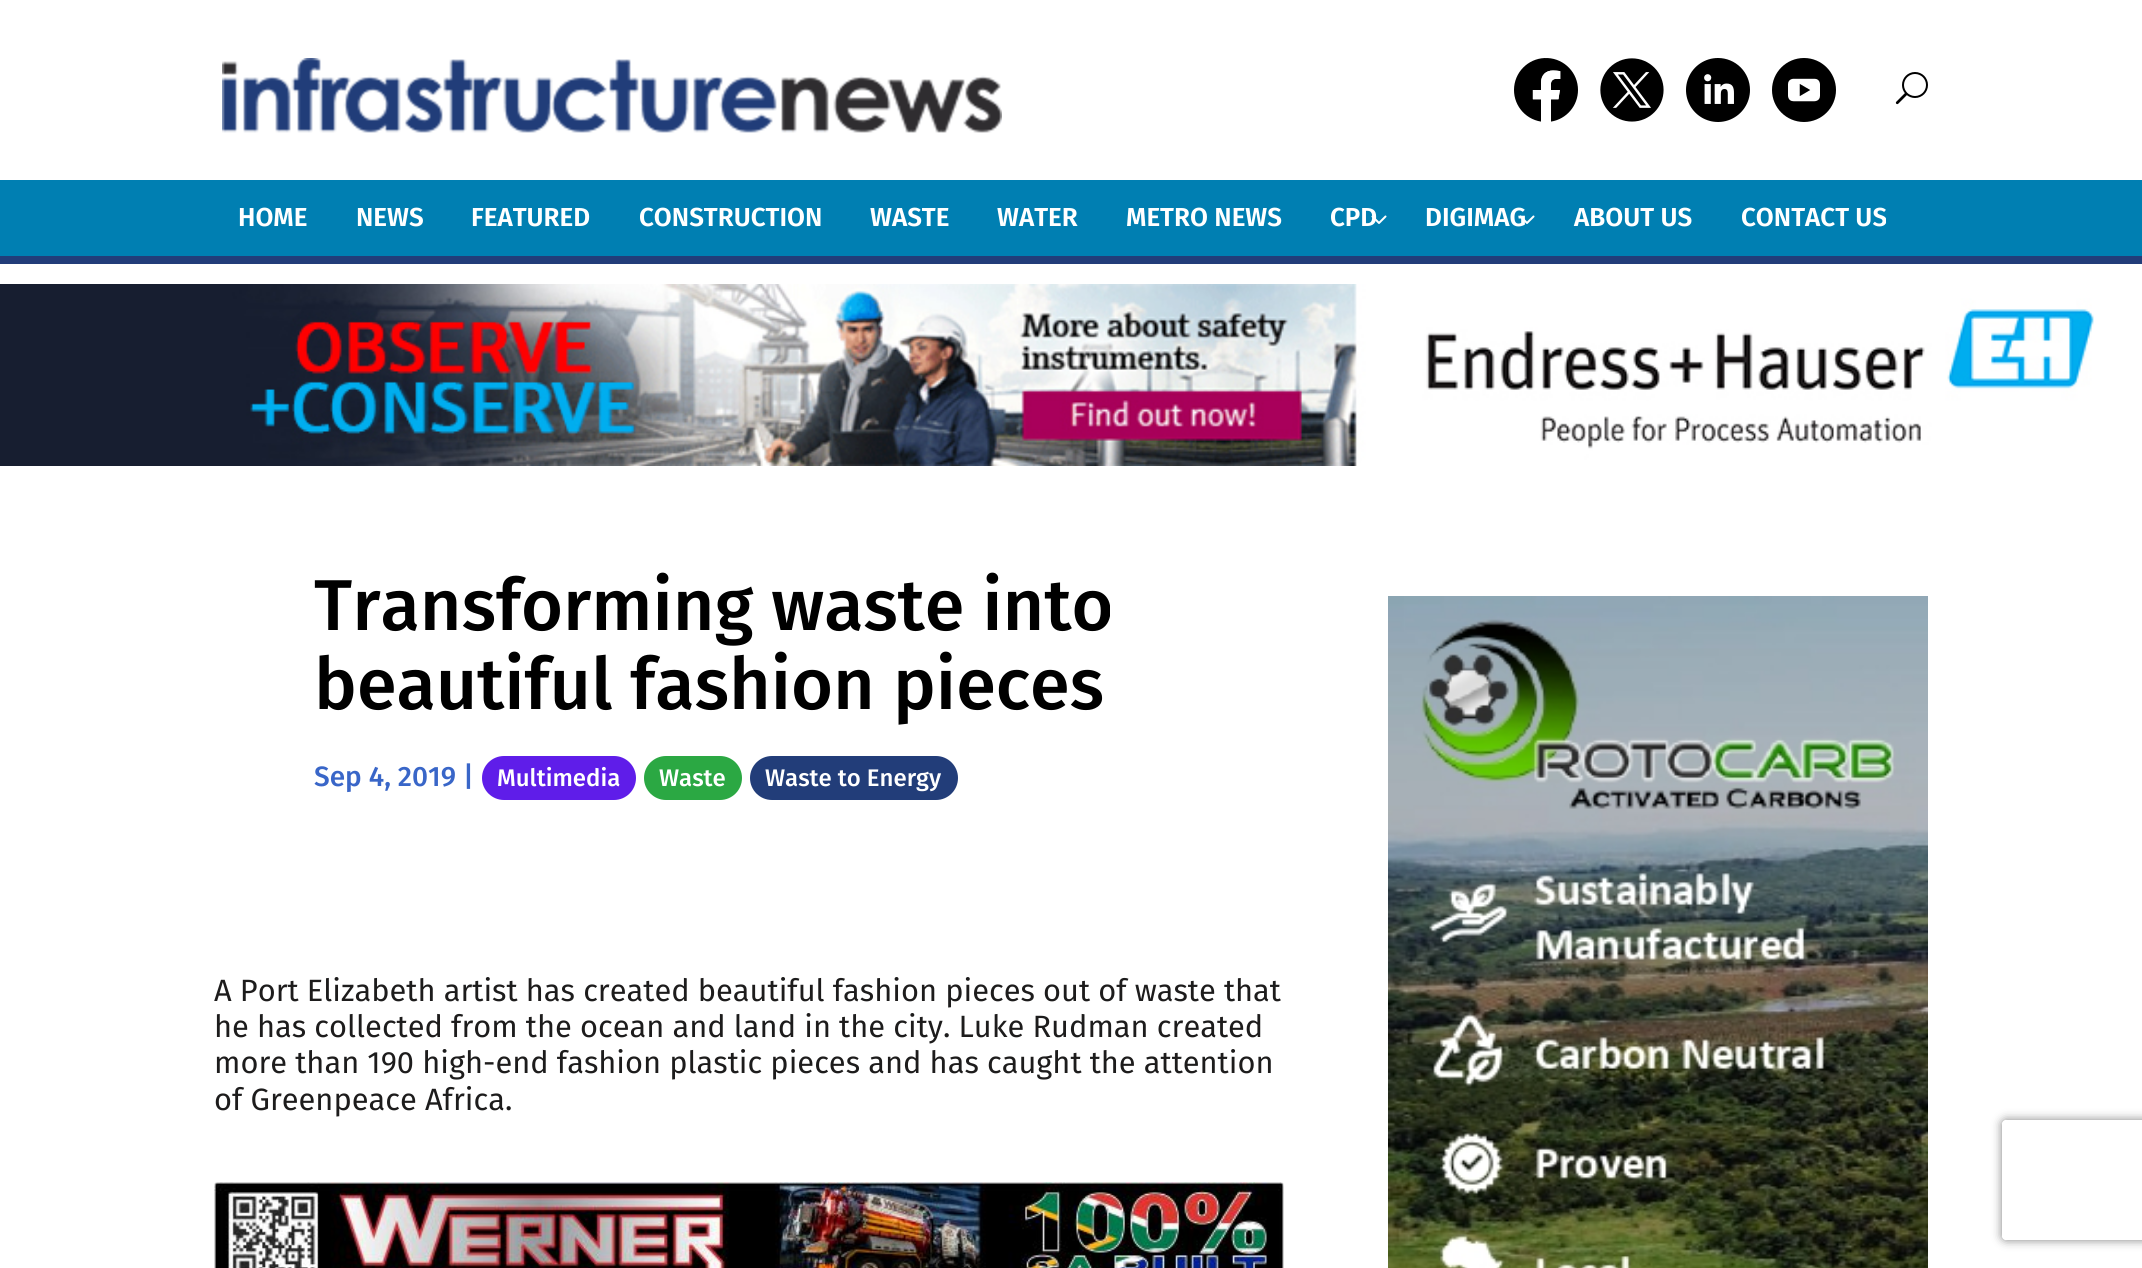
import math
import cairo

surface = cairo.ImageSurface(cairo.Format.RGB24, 2142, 1268)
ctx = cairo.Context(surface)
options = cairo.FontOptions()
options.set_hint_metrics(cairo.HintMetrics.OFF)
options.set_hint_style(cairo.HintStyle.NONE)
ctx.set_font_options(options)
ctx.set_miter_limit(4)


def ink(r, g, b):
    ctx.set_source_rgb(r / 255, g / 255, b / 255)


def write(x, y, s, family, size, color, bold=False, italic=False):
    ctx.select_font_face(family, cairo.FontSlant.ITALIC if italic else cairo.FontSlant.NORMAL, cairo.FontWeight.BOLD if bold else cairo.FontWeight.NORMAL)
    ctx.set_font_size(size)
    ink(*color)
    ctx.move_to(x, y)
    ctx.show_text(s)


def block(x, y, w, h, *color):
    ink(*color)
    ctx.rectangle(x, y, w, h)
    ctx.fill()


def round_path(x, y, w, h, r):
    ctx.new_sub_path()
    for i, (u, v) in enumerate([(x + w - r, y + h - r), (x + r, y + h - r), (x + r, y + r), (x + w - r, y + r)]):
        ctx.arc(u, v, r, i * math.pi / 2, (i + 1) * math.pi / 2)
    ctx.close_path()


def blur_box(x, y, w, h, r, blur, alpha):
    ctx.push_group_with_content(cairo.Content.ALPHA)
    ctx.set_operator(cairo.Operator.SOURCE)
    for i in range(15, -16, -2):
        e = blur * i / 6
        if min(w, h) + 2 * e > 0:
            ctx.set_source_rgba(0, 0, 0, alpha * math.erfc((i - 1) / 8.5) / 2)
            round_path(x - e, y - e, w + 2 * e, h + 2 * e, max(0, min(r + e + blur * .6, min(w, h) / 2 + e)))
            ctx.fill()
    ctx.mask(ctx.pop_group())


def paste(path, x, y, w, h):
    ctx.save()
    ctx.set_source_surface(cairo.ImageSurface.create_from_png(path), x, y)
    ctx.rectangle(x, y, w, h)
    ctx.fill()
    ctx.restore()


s1 = dict(family="Fira Sans SemiBold", size=26, color=(255, 255, 255))
s2 = dict(family="Fira Sans Medium", size=72, color=(0, 0, 0))
s3 = dict(family="Fira Sans Medium", size=28, color=(57, 102, 200))
s4 = dict(family="Fira Sans Medium", size=24, color=(255, 255, 255))
s5 = dict(family="Fira Sans", size=30.8, color=(29, 28, 28))

ink(255, 255, 255)
ctx.paint()
paste("pic1.png", 222, 58, 780, 75)
paste("pic2.png", 1514, 58, 64, 64)
paste("pic3.png", 1600, 58, 64, 64)
paste("pic4.png", 1686, 58, 64, 64)
paste("pic5.png", 1772, 58, 64, 64)
paste("pic6.png", 1895, 72, 33, 33)
block(0, 180, 2142, 76, 0, 127, 178)
block(0, 256, 2142, 8, 34, 61, 121)
write(238, 226, "HOME", **s1)
write(356, 226, "NEWS", **s1)
write(471, 226, "FEATURED", **s1)
write(639, 226, "CONSTRUCTION", **s1)
write(870, 226, "WASTE", **s1)
write(997, 226, "WATER", **s1)
write(1126, 226, "METRO NEWS", **s1)
write(1330, 226, "CPD", **s1)
paste("pic7.png", 1371, 215, 16, 9)
write(1425, 226, "DIGIMAG", **s1)
paste("pic8.png", 1519, 215, 16, 9)
write(1574, 226, "ABOUT US", **s1)
write(1741, 226, "CONTACT US", **s1)
paste("pic9.png", 0, 284, 2094, 182)
write(314, 630, "Transforming waste into", **s2)
write(314, 709, "beautiful fashion pieces", **s2)
write(314, 786, "Sep 4, 2019 |", **s3)
ink(95, 29, 233)
round_path(482, 756, 154, 44, 22)
ctx.fill()
write(497, 786, "Multimedia", **s4)
ink(43, 168, 67)
round_path(644, 756, 98, 44, 22)
ctx.fill()
write(659, 786, "Waste", **s4)
ink(34, 61, 121)
round_path(750, 756, 208, 44, 22)
ctx.fill()
write(765, 786, "Waste to Energy", **s4)
write(214, 1001, "A Port Elizabeth artist has created beautiful fashion pieces out of waste that", **s5)
write(214, 1037, "he has collected from the ocean and land in the city. Luke Rudman created", **s5)
write(214, 1073, "more than 190 high-end fashion plastic pieces and has caught the attention", **s5)
write(214, 1110, "of Greenpeace Africa.", **s5)
paste("pic10.png", 214, 1182, 1070, 86)
paste("pic11.png", 1388, 596, 540, 672)
ctx.save()
ctx.set_fill_rule(cairo.FillRule.EVEN_ODD)
ctx.new_path()
ctx.move_to(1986, 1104)
ctx.line_to(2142, 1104)
ctx.line_to(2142, 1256)
ctx.line_to(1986, 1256)
ctx.close_path()
ctx.move_to(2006, 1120)
ctx.line_to(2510, 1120)
ctx.curve_to(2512, 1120, 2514, 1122, 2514, 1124)
ctx.line_to(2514, 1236)
ctx.curve_to(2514, 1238, 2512, 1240, 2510, 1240)
ctx.line_to(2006, 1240)
ctx.curve_to(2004, 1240, 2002, 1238, 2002, 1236)
ctx.line_to(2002, 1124)
ctx.curve_to(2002, 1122, 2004, 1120, 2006, 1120)
ctx.close_path()
ctx.clip()
ink(128, 128, 128)
blur_box(2002, 1120, 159, 120, 4, 5, 1)
ctx.restore()
surface.write_to_png("screenshot.png")
